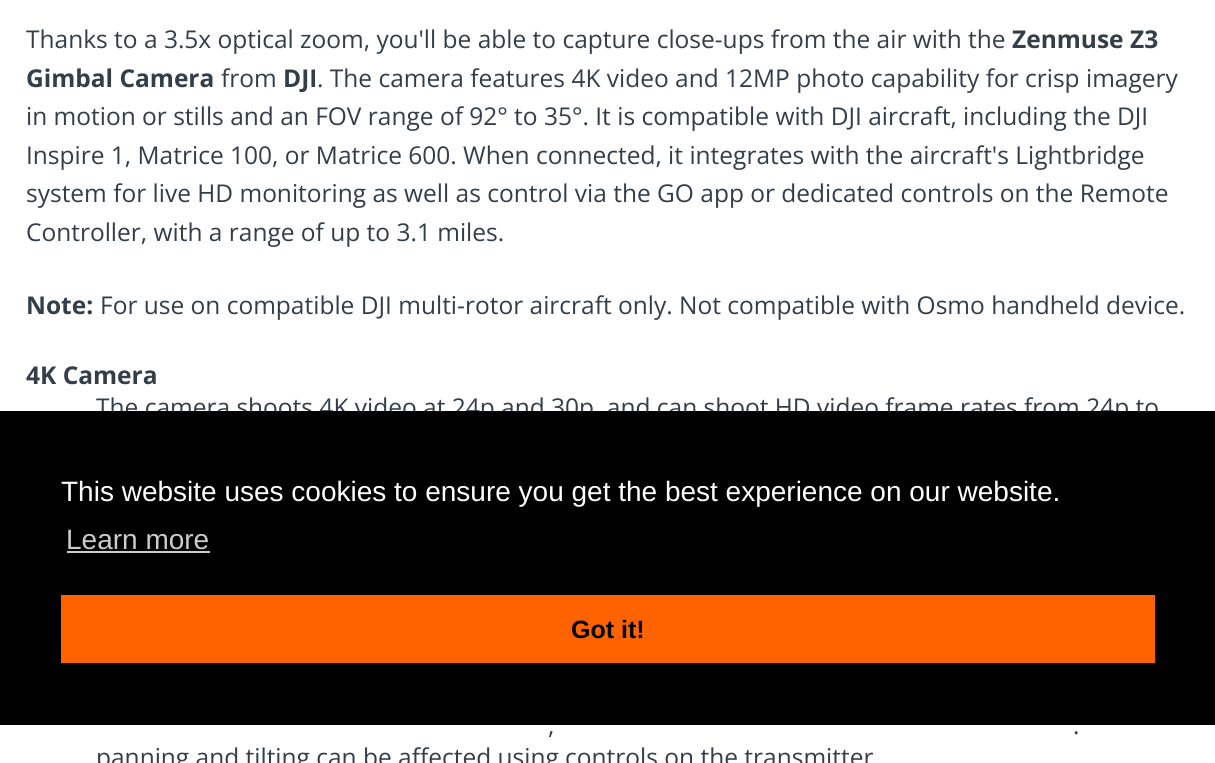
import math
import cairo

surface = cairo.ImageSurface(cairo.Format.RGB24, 1215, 763)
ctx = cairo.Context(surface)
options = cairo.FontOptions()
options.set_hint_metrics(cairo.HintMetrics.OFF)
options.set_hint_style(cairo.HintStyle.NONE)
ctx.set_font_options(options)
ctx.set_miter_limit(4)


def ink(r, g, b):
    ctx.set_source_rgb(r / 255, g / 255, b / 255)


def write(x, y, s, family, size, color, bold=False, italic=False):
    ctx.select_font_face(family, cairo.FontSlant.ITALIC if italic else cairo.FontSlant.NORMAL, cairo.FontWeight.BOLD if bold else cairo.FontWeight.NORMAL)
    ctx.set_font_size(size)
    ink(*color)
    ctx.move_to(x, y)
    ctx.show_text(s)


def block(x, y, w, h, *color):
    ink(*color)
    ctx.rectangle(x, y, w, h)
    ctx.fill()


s1 = dict(family="Open Sans", size=24.5, color=(51, 62, 72))
s2 = dict(family="Open Sans", size=24.5, color=(51, 62, 72), bold=True)
s3 = dict(family="Liberation Sans", size=28, color=(255, 255, 255))
s4 = dict(family="Liberation Sans", size=28, color=(204, 204, 204))
s5 = dict(family="Liberation Sans", size=25, color=(0, 0, 0), bold=True)

ink(255, 255, 255)
ctx.paint()
write(26, 48, "Thanks to a 3.5x optical zoom, you'll be able to capture close-ups from the air with the", **s1)
write(1012, 48, "Zenmuse Z3", **s2)
write(26, 87, "Gimbal Camera", **s2)
write(221, 87, "from", **s1)
write(283, 87, "DJI", **s2)
write(317, 87, ". The camera features 4K video and 12MP photo capability for crisp imagery", **s1)
write(26, 125, "in motion or stills and an FOV range of 92° to 35°. It is compatible with DJI aircraft, including the DJI", **s1)
write(26, 164, "Inspire 1, Matrice 100, or Matrice 600. When connected, it integrates with the aircraft's Lightbridge", **s1)
write(26, 202, "system for live HD monitoring as well as control via the GO app or dedicated controls on the Remote", **s1)
write(26, 241, "Controller, with a range of up to 3.1 miles.", **s1)
write(26, 314, "Note:", **s2)
write(100, 314, "For use on compatible DJI multi-rotor aircraft only. Not compatible with Osmo handheld device.", **s1)
write(26, 384, "4K Camera", **s2)
write(96, 416, "The camera shoots 4K video at 24p and 30p, and can shoot HD video frame rates from 24p to", **s1)
write(548, 734, ",", **s1)
write(1073, 734, ".", **s1)
write(96, 766, "panning and tilting can be affected using controls on the transmitter", **s1)
block(0, 411, 1215, 314, 0, 0, 0)
write(61, 501, "This website uses cookies to ensure you get the best experience on our website.", **s3)
write(66, 549, "Learn more", **s4)
block(67, 551, 143, 2, 204, 204, 204)
block(61, 595, 1094, 68, 254, 99, 0)
write(571, 638, "Got it!", **s5)
surface.write_to_png("screenshot.png")
